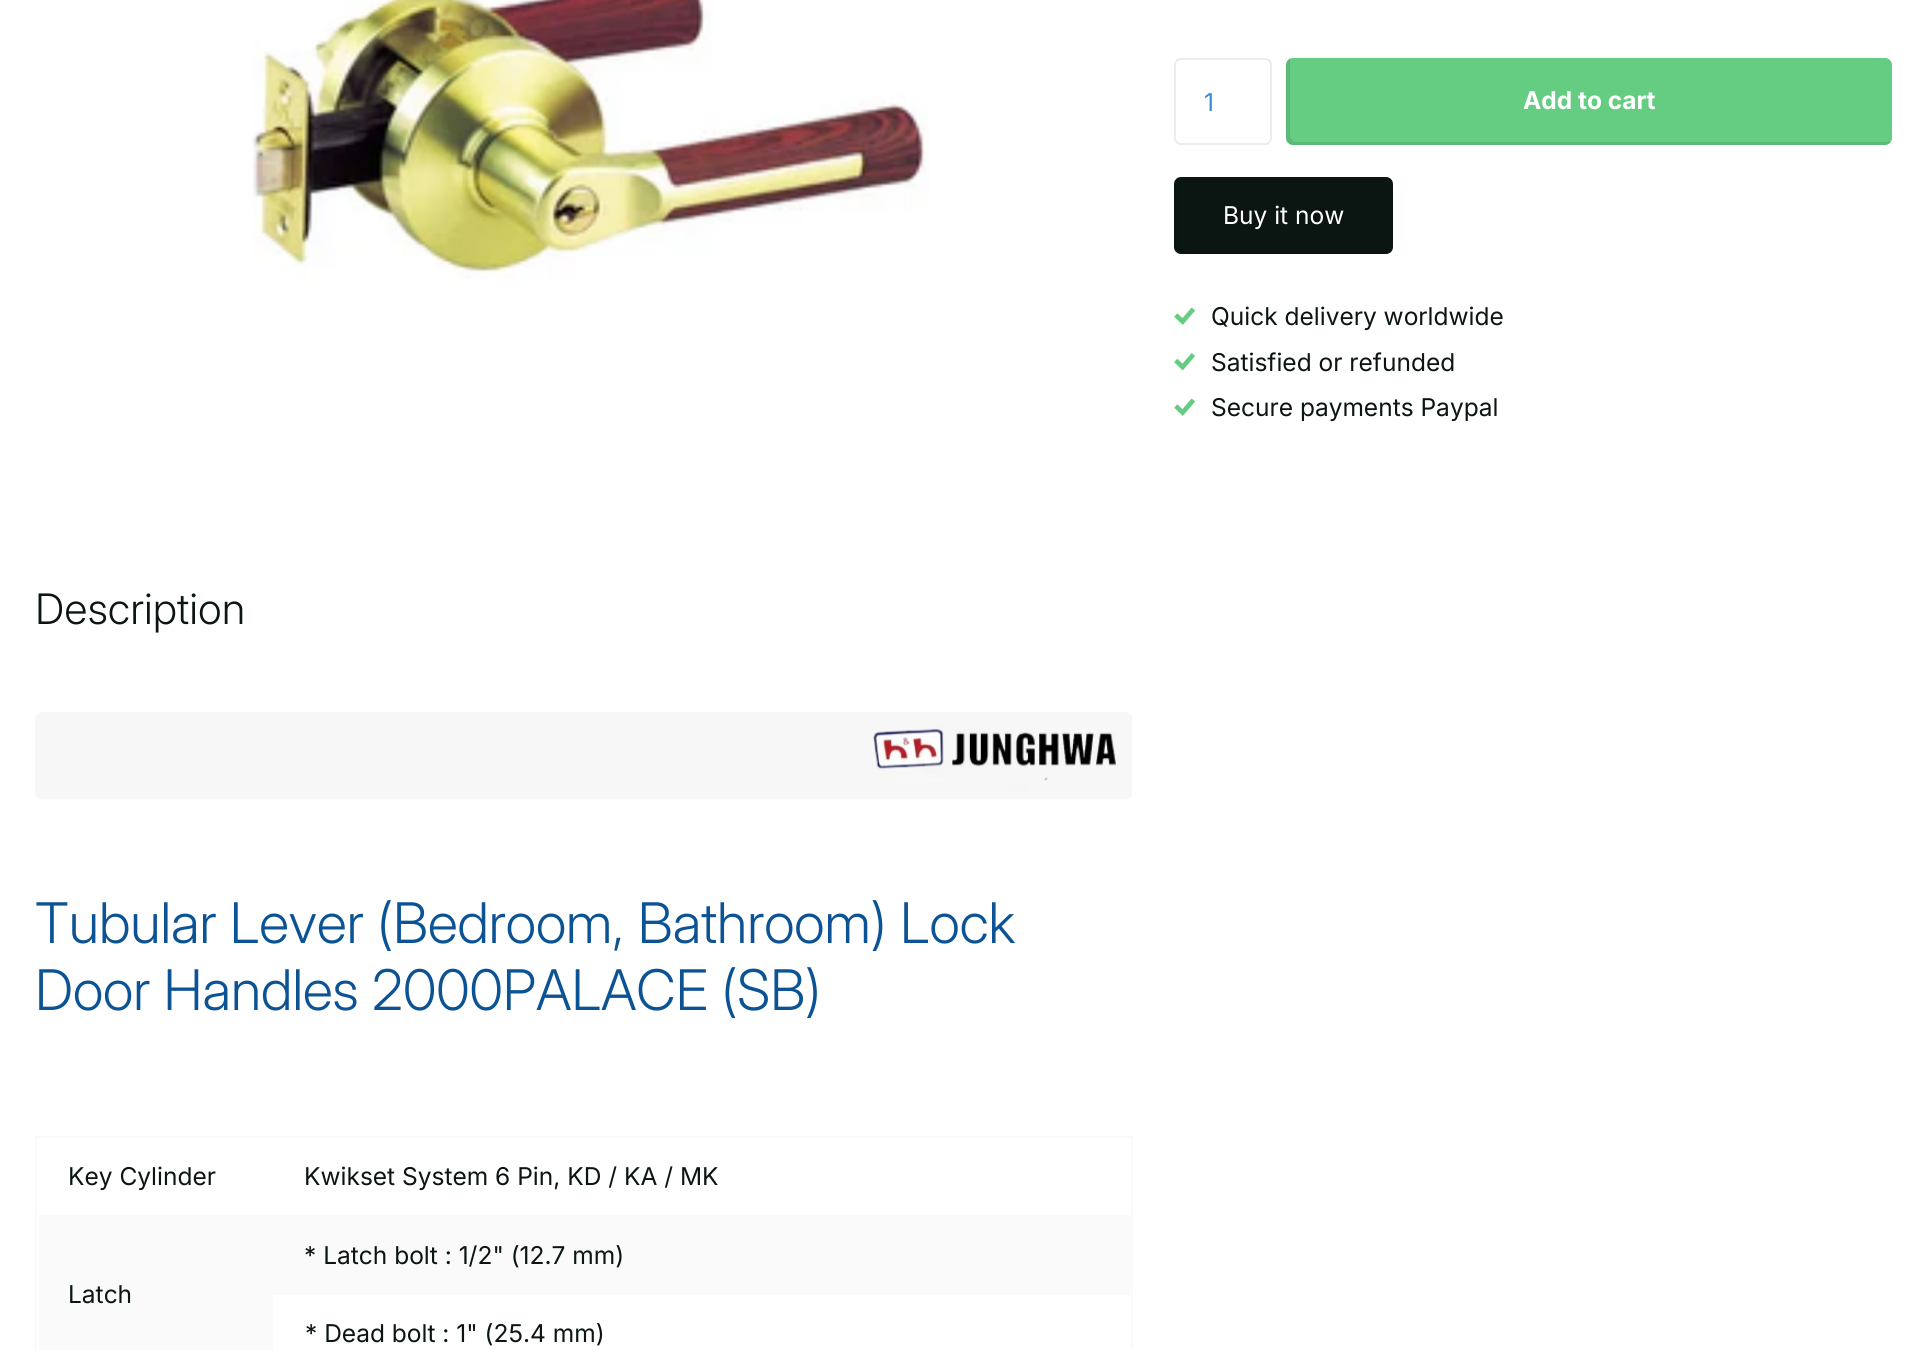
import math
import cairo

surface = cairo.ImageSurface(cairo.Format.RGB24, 1926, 1350)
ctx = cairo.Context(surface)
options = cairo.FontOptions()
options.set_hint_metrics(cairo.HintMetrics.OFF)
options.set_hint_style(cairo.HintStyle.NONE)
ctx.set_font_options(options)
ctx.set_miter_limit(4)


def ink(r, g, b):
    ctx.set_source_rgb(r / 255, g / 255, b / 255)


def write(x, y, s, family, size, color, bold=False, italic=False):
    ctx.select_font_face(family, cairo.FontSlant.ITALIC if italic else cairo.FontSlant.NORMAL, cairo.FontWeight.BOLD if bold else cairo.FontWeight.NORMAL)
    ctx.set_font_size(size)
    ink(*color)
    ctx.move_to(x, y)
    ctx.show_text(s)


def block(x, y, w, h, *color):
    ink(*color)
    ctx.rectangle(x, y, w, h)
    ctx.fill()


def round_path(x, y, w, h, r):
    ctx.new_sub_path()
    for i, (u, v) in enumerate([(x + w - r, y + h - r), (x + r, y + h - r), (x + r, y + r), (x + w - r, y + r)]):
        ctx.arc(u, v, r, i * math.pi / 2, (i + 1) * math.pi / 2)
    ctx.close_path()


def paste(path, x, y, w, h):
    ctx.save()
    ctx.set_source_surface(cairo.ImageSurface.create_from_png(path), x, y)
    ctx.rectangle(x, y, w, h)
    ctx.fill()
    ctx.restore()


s1 = dict(family="Inter", size=24.5, color=(55, 140, 222))
s2 = dict(family="Inter", size=24.5, color=(255, 255, 255), bold=True)
s3 = dict(family="Inter", size=24.5, color=(255, 255, 255))
s4 = dict(family="Inter", size=24.5, color=(11, 22, 19))
s5 = dict(family="Inter Light", size=42, color=(11, 22, 19))
s6 = dict(family="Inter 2 Light", size=56, color=(11, 83, 148))

ink(255, 255, 255)
ctx.paint()
round_path(1175, 59, 96, 85, 6)
ink(235, 236, 236)
ctx.stroke()
write(1204, 111, "1", **s1)
ink(100, 205, 130)
round_path(1286, 58, 606, 87, 7)
ctx.fill()
ctx.set_source_rgba(0, 0, 0, 0.1)
ctx.new_path()
ctx.move_to(1290, 58)
ctx.curve_to(1288, 60, 1286, 62, 1286, 65)
ctx.line_to(1286, 138)
ctx.curve_to(1286, 142, 1289, 145, 1293, 145)
ctx.line_to(1885, 145)
ctx.curve_to(1888, 145, 1890, 143, 1891, 141)
ctx.line_to(1888, 142)
ctx.line_to(1297, 142)
ctx.curve_to(1293, 142, 1290, 139, 1290, 135)
ctx.line_to(1290, 61)
ctx.close_path()
ctx.fill()
write(1523, 109, "Add to cart", **s2)
ink(11, 22, 19)
round_path(1174, 177, 219, 77, 7)
ctx.fill()
ctx.set_source_rgba(0, 0, 0, 0.1)
ctx.new_path()
ctx.move_to(1178, 177)
ctx.curve_to(1176, 179, 1174, 181, 1174, 184)
ctx.line_to(1174, 247)
ctx.curve_to(1174, 251, 1177, 254, 1181, 254)
ctx.line_to(1386, 254)
ctx.curve_to(1389, 254, 1392, 252, 1393, 249)
ctx.line_to(1390, 250)
ctx.line_to(1185, 250)
ctx.curve_to(1181, 250, 1178, 247, 1178, 243)
ctx.line_to(1178, 180)
ctx.close_path()
ctx.fill()
write(1223, 224, "Buy it now", **s3)
paste("pic1.png", 1174, 307, 21, 18)
write(1211, 325, "Quick delivery worldwide", **s4)
paste("pic2.png", 1174, 353, 21, 18)
write(1211, 371, "Satisfied or refunded", **s4)
paste("pic1.png", 1174, 398, 21, 18)
write(1211, 416, "Secure payments Paypal", **s4)
paste("pic3.png", 252, 0, 677, 279)
write(35, 624, "Description", **s5)
paste("pic4.png", 35, 712, 1097, 88)
write(35, 943, "Tubular Lever (Bedroom, Bathroom) Lock", **s6)
write(35, 1010, "Door Handles 2000PALACE (SB)", **s6)
block(35, 1136, 1097, 2, 250, 250, 250)
block(1131, 1215, 2, 135, 250, 250, 250)
block(1131, 1136, 2, 80, 250, 250, 250)
block(35, 1215, 2, 135, 250, 250, 250)
block(35, 1215, 1097, 2, 250, 250, 250)
block(35, 1136, 2, 80, 250, 250, 250)
write(68, 1185, "Key Cylinder", **s4)
write(304, 1185, "Kwikset System 6 Pin, KD / KA / MK", **s4)
block(273, 1217, 858, 76, 250, 250, 250)
block(39, 1217, 234, 133, 250, 250, 250)
block(271, 1293, 861, 2, 250, 250, 250)
write(304, 1264, "* Latch bolt : 1/2\" (12.7 mm)", **s4)
write(68, 1303, "Latch", **s4)
write(305, 1342, "* Dead bolt : 1\" (25.4 mm)", **s4)
surface.write_to_png("screenshot.png")
